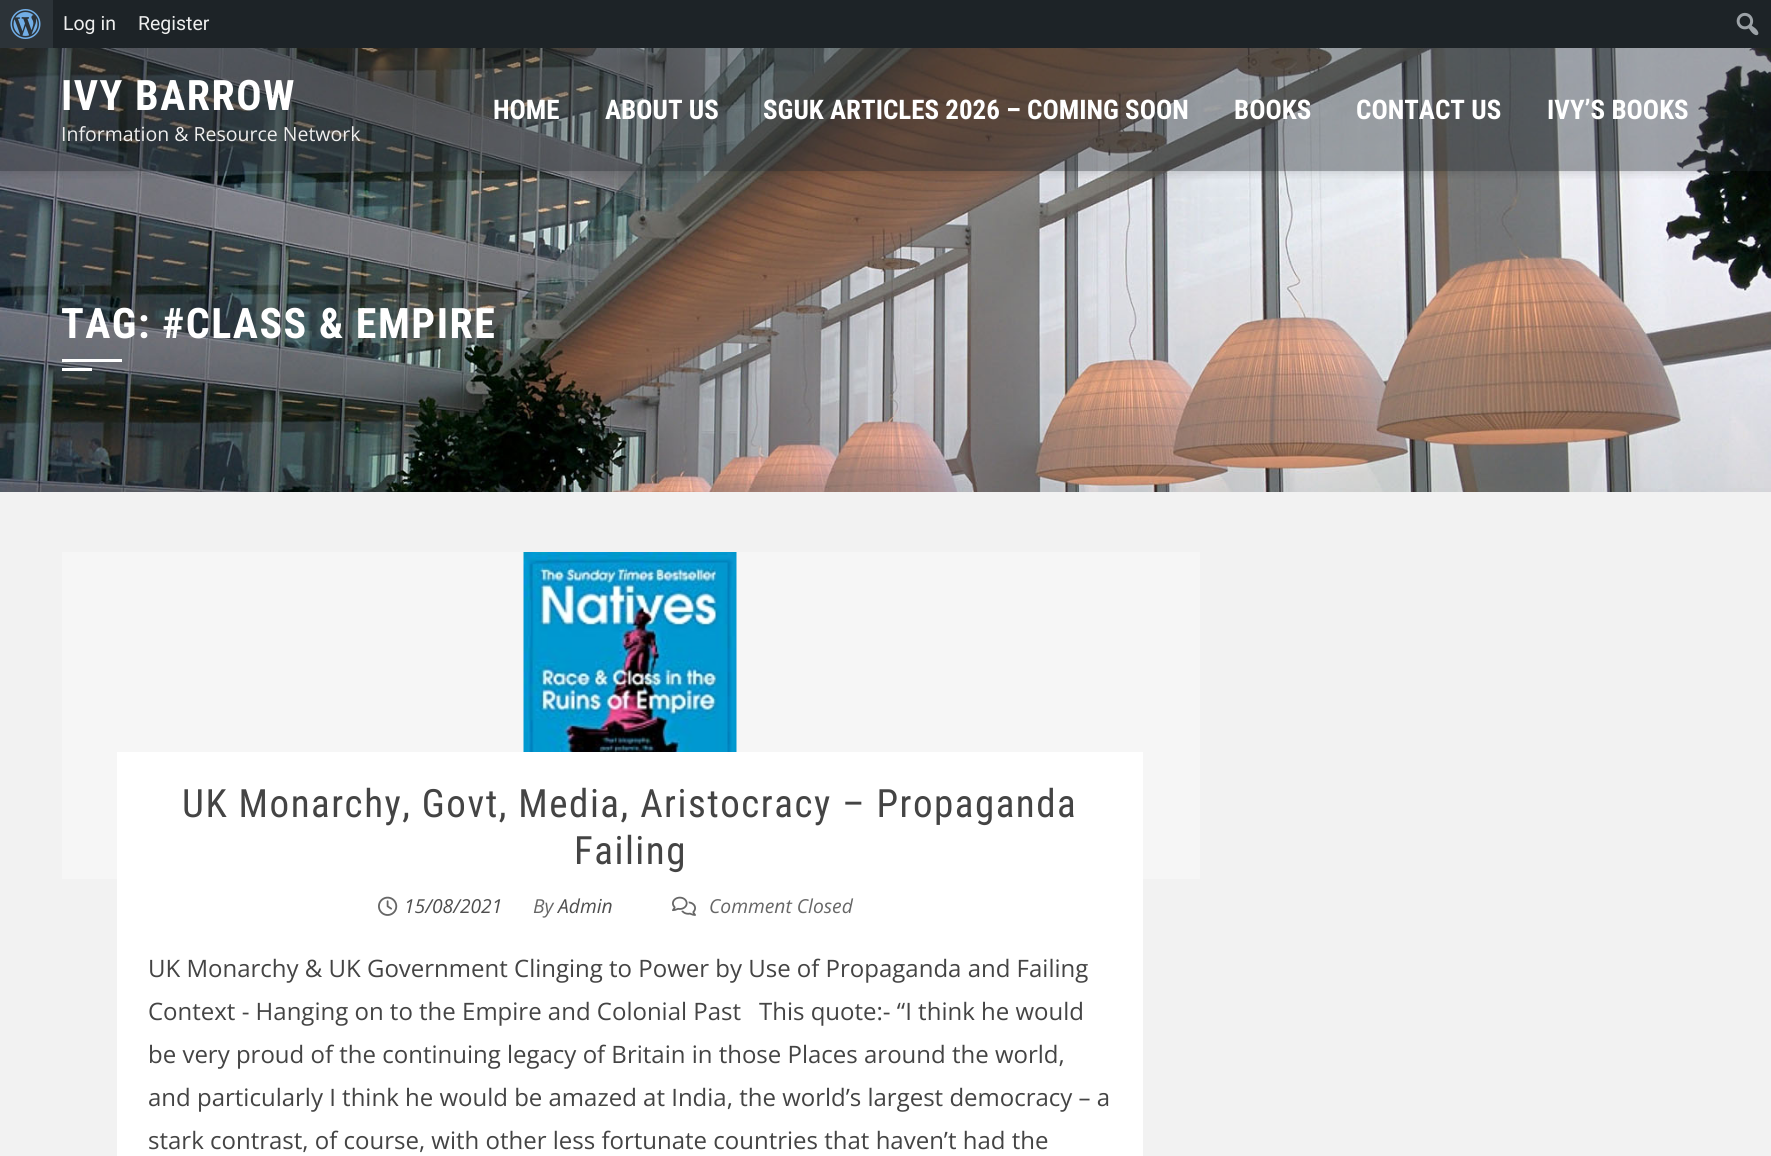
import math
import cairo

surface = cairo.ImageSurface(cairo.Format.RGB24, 1771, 1156)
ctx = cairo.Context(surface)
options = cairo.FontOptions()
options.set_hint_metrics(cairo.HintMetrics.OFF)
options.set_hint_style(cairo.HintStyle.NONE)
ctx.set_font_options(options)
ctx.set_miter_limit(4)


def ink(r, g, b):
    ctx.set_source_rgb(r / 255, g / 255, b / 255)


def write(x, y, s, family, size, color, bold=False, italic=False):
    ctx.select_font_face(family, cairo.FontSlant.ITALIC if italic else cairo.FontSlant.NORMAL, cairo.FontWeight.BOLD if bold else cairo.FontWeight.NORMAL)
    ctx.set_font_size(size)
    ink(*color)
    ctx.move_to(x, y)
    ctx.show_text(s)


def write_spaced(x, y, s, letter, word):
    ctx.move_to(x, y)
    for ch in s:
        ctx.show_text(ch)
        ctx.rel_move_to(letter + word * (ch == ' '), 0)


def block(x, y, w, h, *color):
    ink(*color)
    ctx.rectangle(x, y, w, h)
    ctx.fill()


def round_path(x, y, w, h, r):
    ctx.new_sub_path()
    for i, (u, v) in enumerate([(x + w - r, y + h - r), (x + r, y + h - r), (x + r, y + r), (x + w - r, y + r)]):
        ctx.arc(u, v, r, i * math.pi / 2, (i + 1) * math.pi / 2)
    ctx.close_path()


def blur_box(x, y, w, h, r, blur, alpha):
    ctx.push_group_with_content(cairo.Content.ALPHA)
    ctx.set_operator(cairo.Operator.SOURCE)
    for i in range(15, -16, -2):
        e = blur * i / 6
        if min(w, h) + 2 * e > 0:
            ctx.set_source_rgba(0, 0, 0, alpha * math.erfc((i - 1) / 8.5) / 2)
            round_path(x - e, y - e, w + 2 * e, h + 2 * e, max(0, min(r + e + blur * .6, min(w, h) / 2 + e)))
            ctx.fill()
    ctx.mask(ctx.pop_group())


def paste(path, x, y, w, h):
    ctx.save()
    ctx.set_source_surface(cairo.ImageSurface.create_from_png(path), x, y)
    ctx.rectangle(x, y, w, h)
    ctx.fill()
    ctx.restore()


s1 = dict(family="Roboto", size=19.5, color=(238, 238, 238))
s2 = dict(family="Open Sans", size=19.5, color=(238, 238, 238))
s3 = dict(family="Roboto Condensed", size=27, color=(255, 255, 255), bold=True)
s4 = dict(family="Open Sans", size=19.25, color=(78, 78, 78), italic=True)
s5 = dict(family="Open Sans", size=19.25, color=(102, 102, 102), italic=True)
s6 = dict(family="Open Sans", size=24, color=(68, 68, 68))

ink(242, 242, 242)
ctx.paint()
paste("pic3.png", 0, 48, 1771, 444)
ctx.save()
ctx.rectangle(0, 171, 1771, 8)
ctx.clip()
ink(0, 0, 0)
blur_box(0, 48, 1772, 123, 0, 6, 0.2)
ctx.restore()
block(53, 0, 1718, 48, 29, 35, 39)
block(0, 0, 53, 48, 44, 51, 56)
paste("pic1.png", 10, 9, 31, 30)
write(63, 30, "Log in", **s1)
write(138, 30, "Register", **s1)
paste("pic2.png", 1736, 12, 23, 24)
ctx.set_source_rgba(0.118, 0.141, 0.165, 0.4)
ctx.rectangle(0, 48, 1771, 123)
ctx.fill()
ctx.select_font_face("Roboto Condensed", cairo.FontSlant.NORMAL, cairo.FontWeight.BOLD)
ctx.set_font_size(42)
ink(255, 255, 255)
write_spaced(61, 110, "IVY BARROW", 1.5, 0)
write(61, 141, "Information & Resource Network", **s2)
write(493, 119, "HOME", **s3)
write(605, 119, "ABOUT US", **s3)
write(763, 119, "SGUK ARTICLES 2026 – COMING SOON", **s3)
write(1234, 119, "BOOKS", **s3)
write(1356, 119, "CONTACT US", **s3)
write(1547, 119, "IVY’S BOOKS", **s3)
ctx.set_font_size(42)
write_spaced(61, 338, "TAG: #CLASS & EMPIRE", 1.5, 0)
block(62, 359, 60, 3, 255, 255, 255)
block(62, 368, 30, 3, 255, 255, 255)
block(62, 552, 1138, 327, 246, 246, 246)
paste("pic4.png", 523, 552, 214, 200)
block(117, 752, 1026, 404, 255, 255, 255)
ctx.select_font_face("Roboto Condensed")
ctx.set_font_size(39)
ink(68, 68, 68)
write_spaced(182, 817, "UK Monarchy, Govt, Media, Aristocracy – Propaganda", 1.5, 0)
write_spaced(574, 864, "Failing", 1.5, 0)
paste("pic5.png", 378, 896, 20, 20)
write(404, 913, "15/08/2021", **s4)
write(533, 913, "By", **s5)
write(558, 913, "Admin", **s4)
paste("pic6.png", 672, 896, 24, 20)
write(709, 913, "Comment Closed", **s5)
write(148, 977, "UK Monarchy & UK Government Clinging to Power by Use of Propaganda and Failing", **s6)
write(148, 1020, "Context - Hanging on to the Empire and Colonial Past", **s6)
write(759, 1020, "This quote:- “I think he would", **s6)
write(148, 1063, "be very proud of the continuing legacy of Britain in those Places around the world,", **s6)
write(148, 1106, "and particularly I think he would be amazed at India, the world’s largest democracy – a", **s6)
write(148, 1149, "stark contrast, of course, with other less fortunate countries that haven’t had the", **s6)
surface.write_to_png("screenshot.png")
